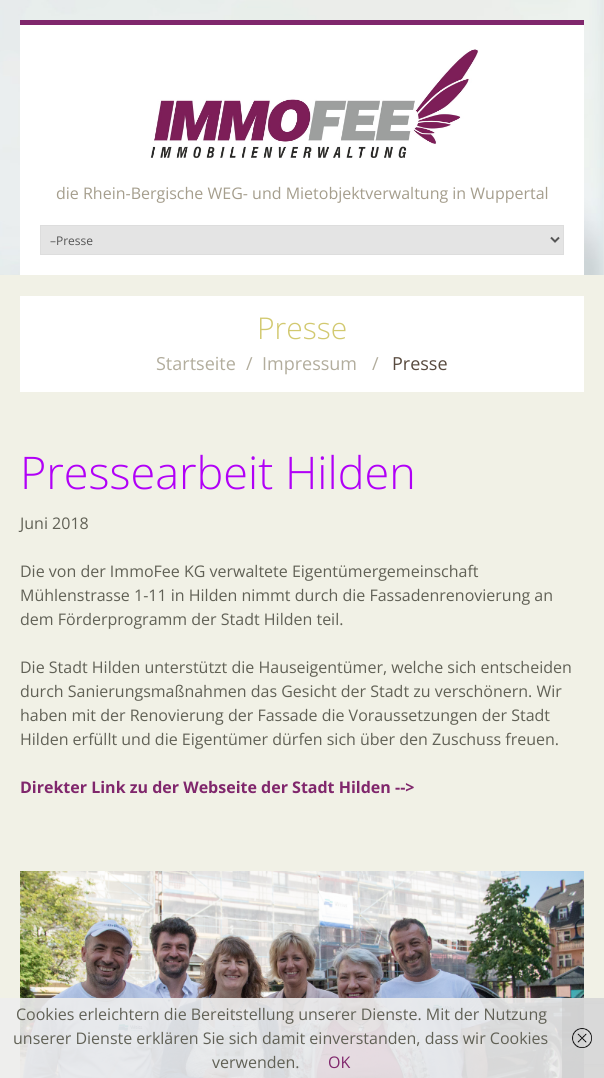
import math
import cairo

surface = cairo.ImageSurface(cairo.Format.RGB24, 604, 1078)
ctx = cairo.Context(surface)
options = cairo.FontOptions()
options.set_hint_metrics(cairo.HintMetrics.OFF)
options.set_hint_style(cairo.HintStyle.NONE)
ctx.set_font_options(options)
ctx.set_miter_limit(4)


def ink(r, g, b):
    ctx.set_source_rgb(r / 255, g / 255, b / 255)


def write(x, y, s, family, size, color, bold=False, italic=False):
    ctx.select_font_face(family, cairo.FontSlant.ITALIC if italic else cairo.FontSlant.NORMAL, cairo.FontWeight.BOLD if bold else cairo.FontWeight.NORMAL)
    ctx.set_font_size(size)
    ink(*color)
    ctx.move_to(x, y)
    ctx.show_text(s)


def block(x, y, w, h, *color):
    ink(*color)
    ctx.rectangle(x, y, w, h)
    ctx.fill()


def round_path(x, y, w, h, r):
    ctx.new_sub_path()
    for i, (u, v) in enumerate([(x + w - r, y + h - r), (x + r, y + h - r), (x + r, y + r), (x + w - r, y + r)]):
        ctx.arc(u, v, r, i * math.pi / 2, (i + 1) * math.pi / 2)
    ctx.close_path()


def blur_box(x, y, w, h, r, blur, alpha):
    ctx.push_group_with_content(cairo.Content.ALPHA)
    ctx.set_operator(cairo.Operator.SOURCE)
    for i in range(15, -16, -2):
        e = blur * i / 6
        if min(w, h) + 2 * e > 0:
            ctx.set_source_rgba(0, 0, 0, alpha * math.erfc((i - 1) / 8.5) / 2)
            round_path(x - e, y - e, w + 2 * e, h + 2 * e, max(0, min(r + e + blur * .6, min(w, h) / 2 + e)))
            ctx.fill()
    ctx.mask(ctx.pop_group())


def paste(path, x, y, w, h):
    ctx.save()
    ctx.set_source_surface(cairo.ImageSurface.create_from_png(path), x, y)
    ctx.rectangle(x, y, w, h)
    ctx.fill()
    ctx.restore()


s1 = dict(family="Open Sans", size=16, color=(165, 158, 141))
s2 = dict(family="Open Sans", size=12, color=(85, 85, 85))
s3 = dict(family="Open Sans Light", size=30, color=(210, 201, 112))
s4 = dict(family="Open Sans", size=18, color=(178, 173, 157))
s5 = dict(family="Open Sans", size=18, color=(88, 74, 62))
s6 = dict(family="Open Sans Light", size=45, color=(177, 0, 247))
s7 = dict(family="Open Sans", size=16, color=(97, 97, 86))
s8 = dict(family="Open Sans", size=16, color=(128, 39, 108), bold=True)
s9 = dict(family="Open Sans", size=16, color=(128, 39, 108))

ink(241, 241, 230)
ctx.paint()
paste("pic1.png", 0, 0, 604, 275)
block(20, 25, 564, 250, 255, 255, 255)
block(20, 20, 564, 5, 128, 39, 108)
paste("pic2.png", 150, 49, 329, 109)
write(56, 199, "die Rhein-Bergische WEG- und Mietobjektverwaltung in Wuppertal", **s1)
ink(228, 228, 228)
ctx.rectangle(40.5, 225.5, 523, 29)
ctx.fill_preserve()
ink(221, 221, 221)
ctx.set_line_width(1)
ctx.stroke()
ctx.new_path()
ctx.move_to(551, 237.5)
ctx.line_to(555, 241.5)
ctx.line_to(559, 237.5)
ink(85, 85, 85)
ctx.set_line_width(2)
ctx.stroke()
write(50, 245, "–Presse", **s2)
block(20, 296, 564, 96, 255, 255, 255)
write(257, 339, "Presse", **s3)
write(156, 370, "Startseite", **s4)
write(246, 370, "/", **s4)
write(262, 370, "Impressum", **s4)
write(372, 370, "/", **s4)
write(392, 370, "Presse", **s5)
write(20, 489, "Pressearbeit Hilden", **s6)
write(20, 529, "Juni 2018", **s7)
write(20, 577, "Die von der ImmoFee KG verwaltete Eigentümergemeinschaft", **s7)
write(20, 601, "Mühlenstrasse 1-11 in Hilden nimmt durch die Fassadenrenovierung an", **s7)
write(20, 625, "dem Förderprogramm der Stadt Hilden teil.", **s7)
write(20, 673, "Die Stadt Hilden unterstützt die Hauseigentümer, welche sich entscheiden", **s7)
write(20, 697, "durch Sanierungsmaßnahmen das Gesicht der Stadt zu verschönern. Wir", **s7)
write(20, 721, "haben mit der Renovierung der Fassade die Voraussetzungen der Stadt", **s7)
write(20, 745, "Hilden erfüllt und die Eigentümer dürfen sich über den Zuschuss freuen.", **s7)
write(20, 793, "Direkter Link zu der Webseite der Stadt Hilden -->", **s8)
ctx.save()
ctx.set_fill_rule(cairo.FillRule.EVEN_ODD)
ctx.new_path()
ctx.move_to(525, 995)
ctx.line_to(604, 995)
ctx.line_to(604, 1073)
ctx.line_to(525, 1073)
ctx.close_path()
ctx.move_to(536, 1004)
ctx.line_to(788, 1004)
ctx.curve_to(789, 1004, 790, 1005, 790, 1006)
ctx.line_to(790, 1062)
ctx.curve_to(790, 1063, 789, 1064, 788, 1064)
ctx.line_to(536, 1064)
ctx.curve_to(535, 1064, 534, 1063, 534, 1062)
ctx.line_to(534, 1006)
ctx.curve_to(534, 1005, 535, 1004, 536, 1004)
ctx.close_path()
ctx.clip()
ink(128, 128, 128)
blur_box(534, 1004, 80, 60, 2, 2.5, 1)
ctx.restore()
paste("pic3.png", 20, 871, 564, 207)
ctx.set_source_rgba(0.933, 0.933, 0.933, 0.9)
ctx.rectangle(0, 998, 604, 80)
ctx.fill()
write(16, 1020, "Cookies erleichtern die Bereitstellung unserer Dienste. Mit der Nutzung", **s7)
write(13, 1044, "unserer Dienste erklären Sie sich damit einverstanden, dass wir Cookies", **s7)
write(212, 1068, "verwenden.", **s7)
write(328, 1068, "OK", **s9)
ctx.set_source_rgba(0.8, 0.8, 0.8, 0.6)
ctx.rectangle(562, 998, 42, 80)
ctx.fill()
paste("pic4.png", 572, 1028, 20, 20)
surface.write_to_png("screenshot.png")
